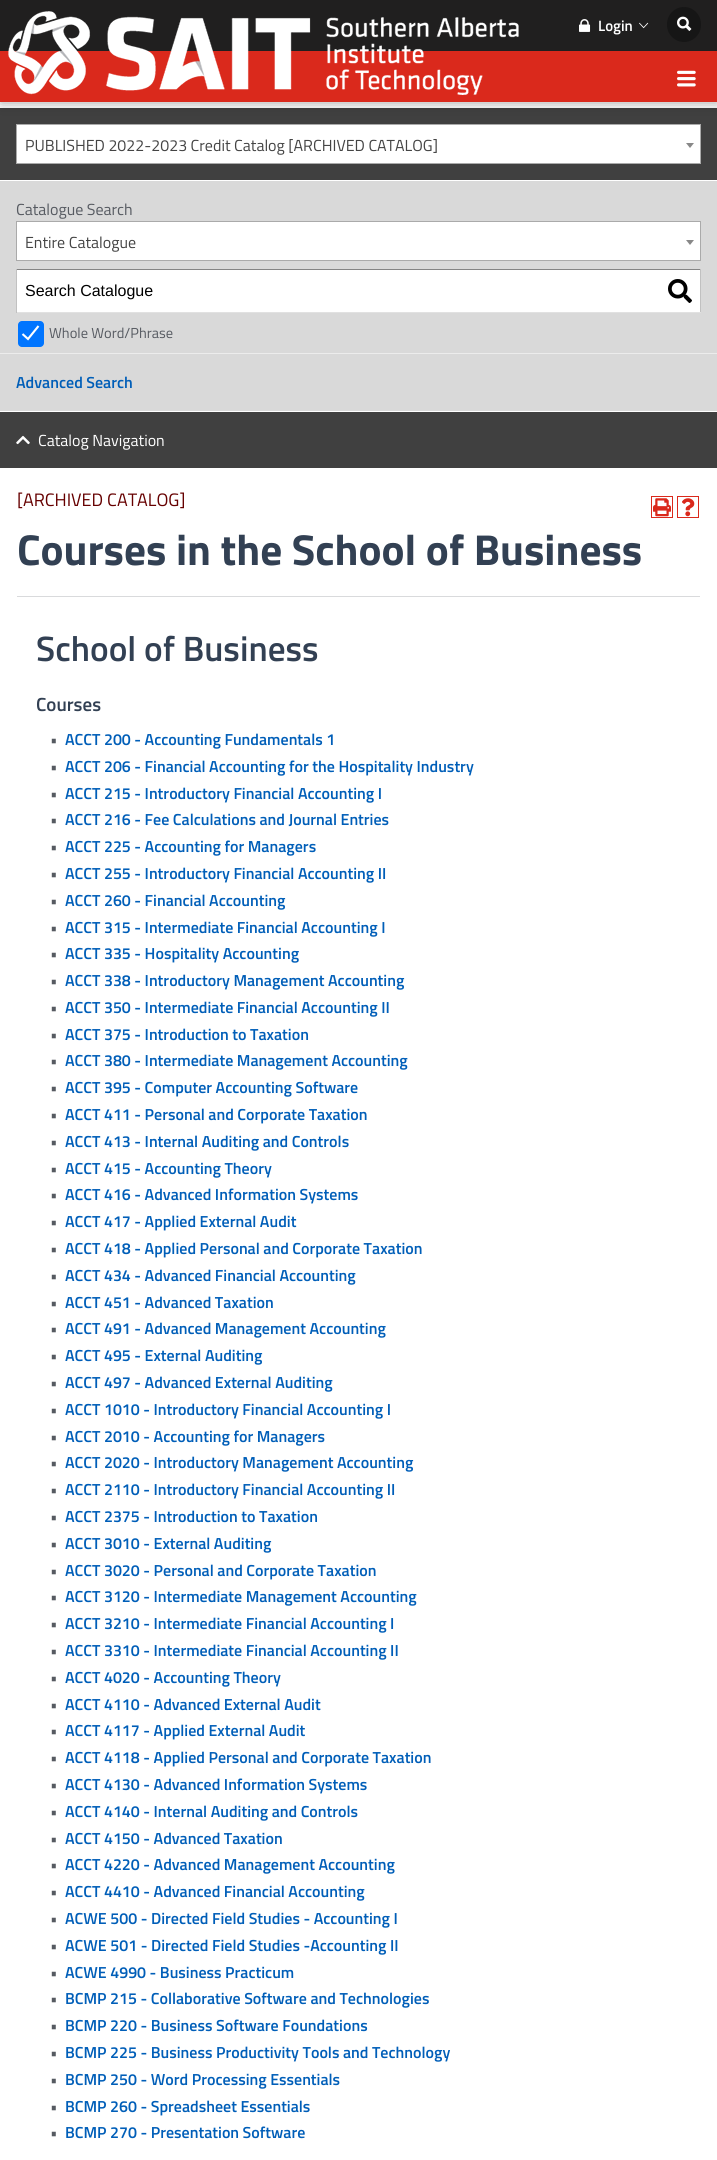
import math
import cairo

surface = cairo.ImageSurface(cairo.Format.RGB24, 717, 2160)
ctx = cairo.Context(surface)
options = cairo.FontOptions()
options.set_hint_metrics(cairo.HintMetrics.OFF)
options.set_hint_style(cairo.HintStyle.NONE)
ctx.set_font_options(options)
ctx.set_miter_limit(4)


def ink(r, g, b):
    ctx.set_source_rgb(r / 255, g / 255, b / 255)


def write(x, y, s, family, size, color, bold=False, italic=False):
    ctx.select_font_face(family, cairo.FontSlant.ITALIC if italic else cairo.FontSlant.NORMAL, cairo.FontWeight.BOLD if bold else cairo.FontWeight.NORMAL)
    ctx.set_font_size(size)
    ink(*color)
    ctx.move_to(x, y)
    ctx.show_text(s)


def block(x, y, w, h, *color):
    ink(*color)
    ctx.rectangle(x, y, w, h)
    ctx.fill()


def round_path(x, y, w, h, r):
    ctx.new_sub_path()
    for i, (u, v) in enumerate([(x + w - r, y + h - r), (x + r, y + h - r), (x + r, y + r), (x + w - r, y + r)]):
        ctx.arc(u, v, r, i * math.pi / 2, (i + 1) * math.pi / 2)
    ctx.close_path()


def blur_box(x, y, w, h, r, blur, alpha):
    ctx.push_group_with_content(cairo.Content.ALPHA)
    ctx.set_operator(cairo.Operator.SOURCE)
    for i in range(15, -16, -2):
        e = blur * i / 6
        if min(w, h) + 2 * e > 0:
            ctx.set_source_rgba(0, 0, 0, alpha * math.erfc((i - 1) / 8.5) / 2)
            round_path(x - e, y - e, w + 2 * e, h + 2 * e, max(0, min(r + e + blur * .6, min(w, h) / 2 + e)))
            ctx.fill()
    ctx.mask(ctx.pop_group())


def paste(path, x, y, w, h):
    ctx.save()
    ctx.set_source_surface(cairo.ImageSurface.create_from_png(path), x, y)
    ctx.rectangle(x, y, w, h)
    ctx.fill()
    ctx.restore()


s1 = dict(family="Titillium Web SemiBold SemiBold", size=15, color=(255, 255, 255))
s2 = dict(family="Titillium Web", size=16, color=(68, 68, 68))
s3 = dict(family="Titillium Web", size=16, color=(86, 90, 97))
s4 = dict(family="Liberation Sans", size=16, color=(0, 0, 0))
s5 = dict(family="Titillium Web", size=14.5, color=(86, 90, 97))
s6 = dict(family="Titillium Web SemiBold SemiBold", size=16, color=(0, 94, 184))
s7 = dict(family="Titillium Web", size=16, color=(255, 255, 255))
s8 = dict(family="Titillium Web", size=18, color=(102, 0, 0))
s9 = dict(family="Titillium Web", size=43.25, color=(50, 64, 83), bold=True)
s10 = dict(family="Titillium Web SemiBold SemiBold", size=35.25, color=(50, 64, 83))
s11 = dict(family="Titillium Web SemiBold SemiBold", size=19, color=(50, 64, 83))

ink(255, 255, 255)
ctx.paint()
block(0, 108, 717, 72, 64, 64, 64)
ink(0, 0, 0)
blur_box(1, 1, 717, 102, 0, 6, 0.35)
block(0, 51, 717, 51, 218, 41, 28)
block(0, 0, 717, 51, 32, 31, 31)
paste("pic1.png", 8, 11, 511, 84)
paste("pic2.png", 579, 19, 12, 13)
write(598, 31, "Login", **s1)
paste("pic3.png", 639, 22, 10, 7)
ink(22, 22, 22)
round_path(667, 7, 34, 35, 17)
ctx.fill()
paste("pic4.png", 677, 16, 15, 15)
paste("pic5.png", 677, 70, 19, 17)
ink(255, 255, 255)
ctx.rectangle(16.5, 124.5, 684, 39)
ctx.fill_preserve()
ink(170, 170, 170)
ctx.set_line_width(1)
ctx.stroke()
write(25, 151, "PUBLISHED 2022-2023 Credit Catalog [ARCHIVED CATALOG]", **s2)
ink(136, 136, 136)
ctx.new_path()
ctx.move_to(686, 143)
ctx.line_to(694, 143)
ctx.line_to(690, 148)
ctx.close_path()
ctx.fill()
block(0, 181, 717, 230, 217, 217, 217)
write(16, 215, "Catalogue Search", **s3)
ink(255, 255, 255)
ctx.rectangle(16.5, 221.5, 684, 39)
ctx.fill_preserve()
ink(170, 170, 170)
ctx.stroke()
write(25, 248, "Entire Catalogue", **s2)
ink(136, 136, 136)
ctx.new_path()
ctx.move_to(686, 240)
ctx.line_to(694, 240)
ctx.line_to(690, 245)
ctx.close_path()
ctx.fill()
block(17, 270, 683, 42, 255, 255, 255)
block(16, 269, 685, 1, 132, 132, 132)
block(700, 269, 1, 44, 193, 193, 193)
block(16, 312, 685, 1, 225, 225, 225)
block(16, 269, 1, 44, 193, 193, 193)
write(25, 296, "Search Catalogue", **s4)
paste("pic6.png", 668, 279, 24, 24)
ink(0, 117, 255)
round_path(18, 321, 26, 26, 4)
ctx.fill()
ctx.new_path()
ctx.move_to(22.5, 334)
ctx.line_to(28, 339)
ctx.line_to(38.5, 326)
ink(255, 255, 255)
ctx.set_line_width(2.1)
ctx.stroke()
write(49, 338, "Whole Word/Phrase", **s5)
block(0, 353, 717, 1, 236, 236, 236)
write(16, 388, "Advanced Search", **s6)
block(0, 412, 717, 56, 64, 64, 64)
paste("pic7.png", 16, 435, 14, 10)
write(38, 446, "Catalog Navigation", **s7)
write(17, 506, "[ARCHIVED CATALOG]", **s8)
ctx.rectangle(651.5, 496.5, 21, 21)
ink(218, 41, 28)
ctx.set_line_width(1)
ctx.stroke()
paste("pic8.png", 653, 498, 18, 19)
ctx.rectangle(677.5, 496.5, 21, 21)
ctx.stroke()
paste("pic9.png", 682, 498, 13, 19)
write(17, 565, "Courses in the School of Business", **s9)
block(17, 596, 683, 1, 217, 218, 220)
write(36, 661, "School of Business", **s10)
write(36, 711, "Courses", **s11)
write(50, 745, "•", **s3)
write(65, 745, "ACCT 200 - Accounting Fundamentals 1", **s6)
write(50, 772, "•", **s3)
write(65, 772, "ACCT 206 - Financial Accounting for the Hospitality Industry", **s6)
write(50, 799, "•", **s3)
write(65, 799, "ACCT 215 - Introductory Financial Accounting I", **s6)
write(50, 825, "•", **s3)
write(65, 825, "ACCT 216 - Fee Calculations and Journal Entries", **s6)
write(50, 852, "•", **s3)
write(65, 852, "ACCT 225 - Accounting for Managers", **s6)
write(50, 879, "•", **s3)
write(65, 879, "ACCT 255 - Introductory Financial Accounting II", **s6)
write(50, 906, "•", **s3)
write(65, 906, "ACCT 260 - Financial Accounting", **s6)
write(50, 933, "•", **s3)
write(65, 933, "ACCT 315 - Intermediate Financial Accounting I", **s6)
write(50, 959, "•", **s3)
write(65, 959, "ACCT 335 - Hospitality Accounting", **s6)
write(50, 986, "•", **s3)
write(65, 986, "ACCT 338 - Introductory Management Accounting", **s6)
write(50, 1013, "•", **s3)
write(65, 1013, "ACCT 350 - Intermediate Financial Accounting II", **s6)
write(50, 1040, "•", **s3)
write(65, 1040, "ACCT 375 - Introduction to Taxation", **s6)
write(50, 1066, "•", **s3)
write(65, 1066, "ACCT 380 - Intermediate Management Accounting", **s6)
write(50, 1093, "•", **s3)
write(65, 1093, "ACCT 395 - Computer Accounting Software", **s6)
write(50, 1120, "•", **s3)
write(65, 1120, "ACCT 411 - Personal and Corporate Taxation", **s6)
write(50, 1147, "•", **s3)
write(65, 1147, "ACCT 413 - Internal Auditing and Controls", **s6)
write(50, 1174, "•", **s3)
write(65, 1174, "ACCT 415 - Accounting Theory", **s6)
write(50, 1200, "•", **s3)
write(65, 1200, "ACCT 416 - Advanced Information Systems", **s6)
write(50, 1227, "•", **s3)
write(65, 1227, "ACCT 417 - Applied External Audit", **s6)
write(50, 1254, "•", **s3)
write(65, 1254, "ACCT 418 - Applied Personal and Corporate Taxation", **s6)
write(50, 1281, "•", **s3)
write(65, 1281, "ACCT 434 - Advanced Financial Accounting", **s6)
write(50, 1308, "•", **s3)
write(65, 1308, "ACCT 451 - Advanced Taxation", **s6)
write(50, 1334, "•", **s3)
write(65, 1334, "ACCT 491 - Advanced Management Accounting", **s6)
write(50, 1361, "•", **s3)
write(65, 1361, "ACCT 495 - External Auditing", **s6)
write(50, 1388, "•", **s3)
write(65, 1388, "ACCT 497 - Advanced External Auditing", **s6)
write(50, 1415, "•", **s3)
write(65, 1415, "ACCT 1010 - Introductory Financial Accounting I", **s6)
write(50, 1442, "•", **s3)
write(65, 1442, "ACCT 2010 - Accounting for Managers", **s6)
write(50, 1468, "•", **s3)
write(65, 1468, "ACCT 2020 - Introductory Management Accounting", **s6)
write(50, 1495, "•", **s3)
write(65, 1495, "ACCT 2110 - Introductory Financial Accounting II", **s6)
write(50, 1522, "•", **s3)
write(65, 1522, "ACCT 2375 - Introduction to Taxation", **s6)
write(50, 1549, "•", **s3)
write(65, 1549, "ACCT 3010 - External Auditing", **s6)
write(50, 1576, "•", **s3)
write(65, 1576, "ACCT 3020 - Personal and Corporate Taxation", **s6)
write(50, 1602, "•", **s3)
write(65, 1602, "ACCT 3120 - Intermediate Management Accounting", **s6)
write(50, 1629, "•", **s3)
write(65, 1629, "ACCT 3210 - Intermediate Financial Accounting I", **s6)
write(50, 1656, "•", **s3)
write(65, 1656, "ACCT 3310 - Intermediate Financial Accounting II", **s6)
write(50, 1683, "•", **s3)
write(65, 1683, "ACCT 4020 - Accounting Theory", **s6)
write(50, 1710, "•", **s3)
write(65, 1710, "ACCT 4110 - Advanced External Audit", **s6)
write(50, 1736, "•", **s3)
write(65, 1736, "ACCT 4117 - Applied External Audit", **s6)
write(50, 1763, "•", **s3)
write(65, 1763, "ACCT 4118 - Applied Personal and Corporate Taxation", **s6)
write(50, 1790, "•", **s3)
write(65, 1790, "ACCT 4130 - Advanced Information Systems", **s6)
write(50, 1817, "•", **s3)
write(65, 1817, "ACCT 4140 - Internal Auditing and Controls", **s6)
write(50, 1844, "•", **s3)
write(65, 1844, "ACCT 4150 - Advanced Taxation", **s6)
write(50, 1870, "•", **s3)
write(65, 1870, "ACCT 4220 - Advanced Management Accounting", **s6)
write(50, 1897, "•", **s3)
write(65, 1897, "ACCT 4410 - Advanced Financial Accounting", **s6)
write(50, 1924, "•", **s3)
write(65, 1924, "ACWE 500 - Directed Field Studies - Accounting I", **s6)
write(50, 1951, "•", **s3)
write(65, 1951, "ACWE 501 - Directed Field Studies -Accounting II", **s6)
write(50, 1978, "•", **s3)
write(65, 1978, "ACWE 4990 - Business Practicum", **s6)
write(50, 2004, "•", **s3)
write(65, 2004, "BCMP 215 - Collaborative Software and Technologies", **s6)
write(50, 2031, "•", **s3)
write(65, 2031, "BCMP 220 - Business Software Foundations", **s6)
write(50, 2058, "•", **s3)
write(65, 2058, "BCMP 225 - Business Productivity Tools and Technology", **s6)
write(50, 2085, "•", **s3)
write(65, 2085, "BCMP 250 - Word Processing Essentials", **s6)
write(50, 2112, "•", **s3)
write(65, 2112, "BCMP 260 - Spreadsheet Essentials", **s6)
write(50, 2138, "•", **s3)
write(65, 2138, "BCMP 270 - Presentation Software", **s6)
surface.write_to_png("screenshot.png")
